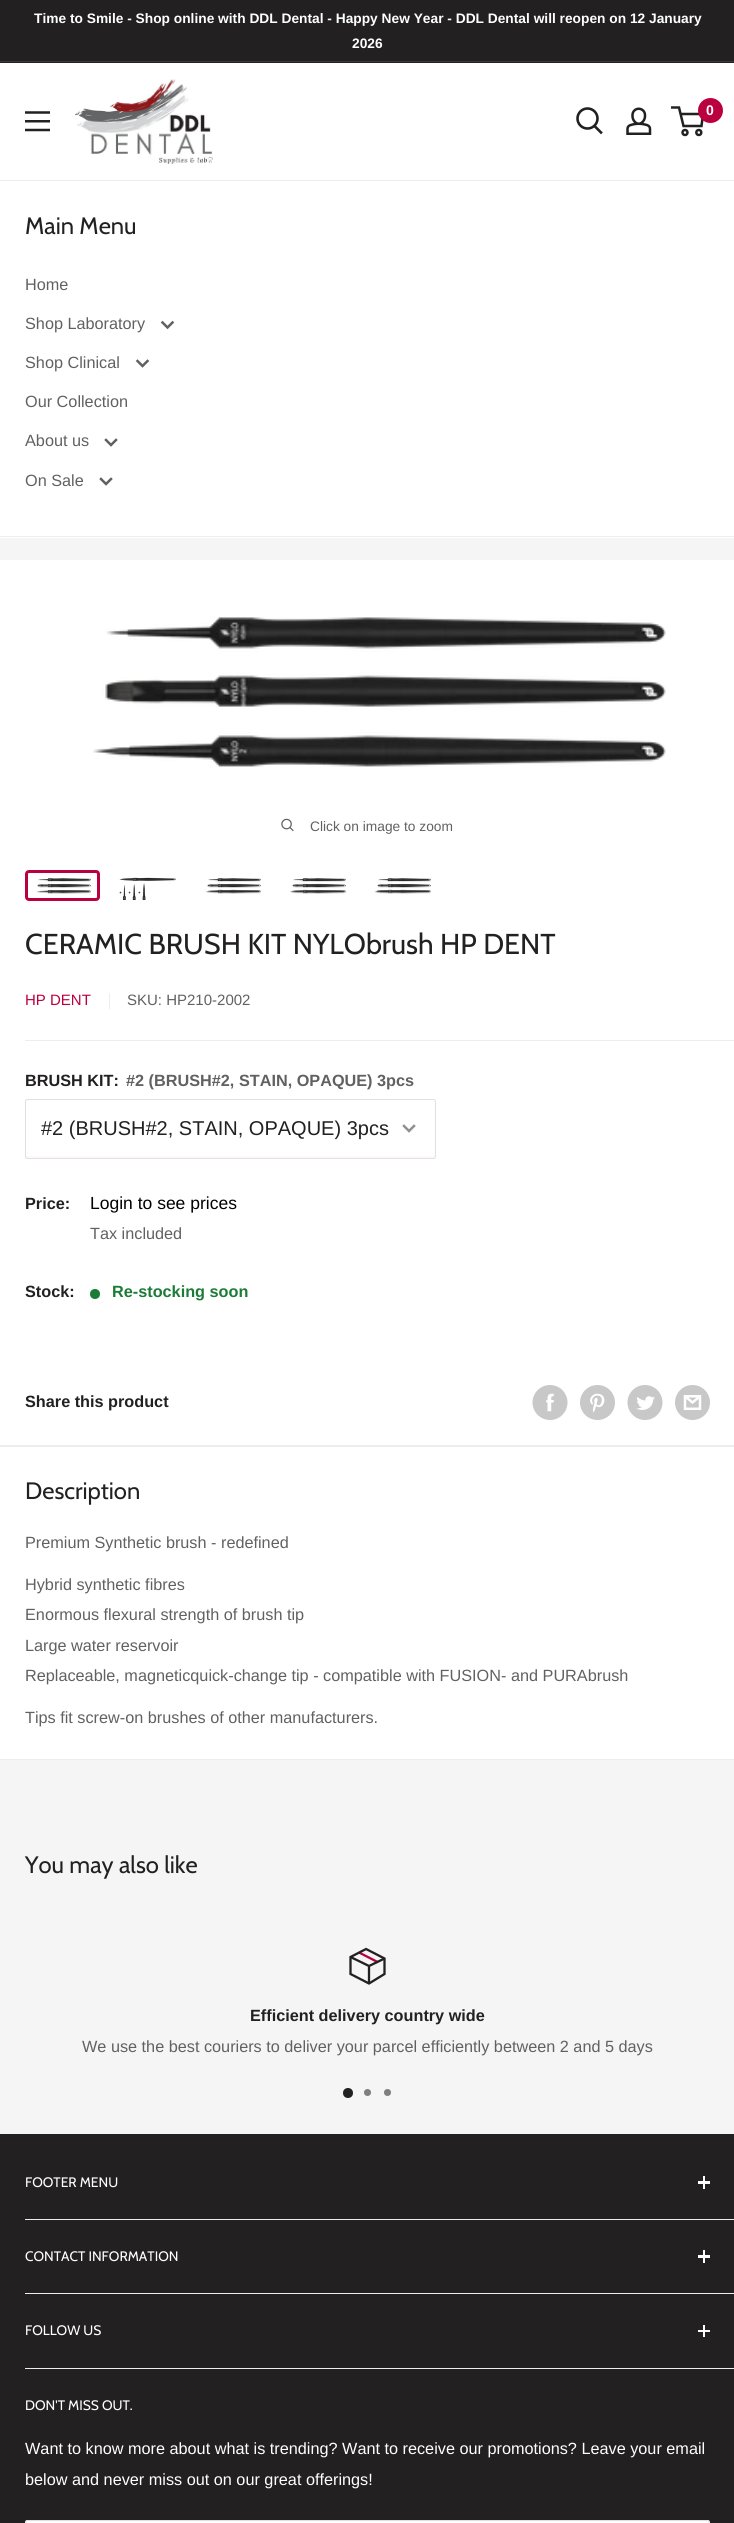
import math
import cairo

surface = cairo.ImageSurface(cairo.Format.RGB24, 734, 2523)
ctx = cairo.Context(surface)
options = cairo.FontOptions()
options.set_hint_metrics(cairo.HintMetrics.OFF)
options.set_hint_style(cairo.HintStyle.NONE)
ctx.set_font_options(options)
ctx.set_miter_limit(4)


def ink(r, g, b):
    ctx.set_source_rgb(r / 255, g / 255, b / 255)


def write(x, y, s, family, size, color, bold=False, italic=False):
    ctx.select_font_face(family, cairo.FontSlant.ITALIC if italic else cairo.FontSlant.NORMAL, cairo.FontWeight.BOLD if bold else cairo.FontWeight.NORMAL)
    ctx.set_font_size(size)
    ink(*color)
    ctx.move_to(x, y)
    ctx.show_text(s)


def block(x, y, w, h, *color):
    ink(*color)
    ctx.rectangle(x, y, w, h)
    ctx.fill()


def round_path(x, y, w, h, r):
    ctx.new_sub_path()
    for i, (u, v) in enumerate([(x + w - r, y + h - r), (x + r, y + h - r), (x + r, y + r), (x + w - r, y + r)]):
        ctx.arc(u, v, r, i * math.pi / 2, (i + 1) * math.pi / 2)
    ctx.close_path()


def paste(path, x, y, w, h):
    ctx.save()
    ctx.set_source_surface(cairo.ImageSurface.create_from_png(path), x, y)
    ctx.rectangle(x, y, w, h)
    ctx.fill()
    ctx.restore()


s1 = dict(family="Liberation Sans", size=13.75, color=(255, 255, 255), bold=True)
s2 = dict(family="Liberation Sans", size=14, color=(255, 255, 255), bold=True)
s3 = dict(family="Cabin", size=23.75, color=(34, 32, 33))
s4 = dict(family="Liberation Sans", size=16.25, color=(97, 97, 97))
s5 = dict(family="Liberation Sans", size=13.75, color=(97, 97, 97))
s6 = dict(family="Cabin", size=28.75, color=(34, 32, 33))
s7 = dict(family="Liberation Sans", size=15, color=(186, 0, 62))
s8 = dict(family="Liberation Sans", size=15, color=(97, 97, 97))
s9 = dict(family="Liberation Sans", size=16.25, color=(34, 32, 33), bold=True)
s10 = dict(family="Liberation Sans", size=16.25, color=(97, 97, 97), bold=True)
s11 = dict(family="Liberation Sans", size=20, color=(34, 32, 33))
s12 = dict(family="Liberation Sans", size=17.5, color=(0, 0, 0))
s13 = dict(family="Liberation Sans", size=16.25, color=(28, 123, 54), bold=True)
s14 = dict(family="Cabin", size=13.75, color=(255, 255, 255))
s15 = dict(family="Liberation Sans", size=16.25, color=(255, 255, 255))

ink(245, 245, 245)
ctx.paint()
block(0, 0, 734, 63, 34, 32, 33)
block(0, 61, 734, 1, 60, 58, 58)
write(34, 23, "Time to Smile - Shop online with DDL Dental - Happy New Year - DDL Dental will reopen on 12 January", **s1)
write(352, 48, "2026", **s1)
block(0, 63, 734, 117, 255, 255, 255)
paste("pic1.png", 25, 111, 25, 21)
paste("pic2.png", 75, 79, 138, 85)
ctx.new_path()
ctx.move_to(601, 132.5)
ctx.line_to(594.5, 126)
ink(34, 32, 33)
ctx.set_line_width(2.6)
ctx.set_line_cap(cairo.LineCap.SQUARE)
ctx.stroke()
ctx.arc(587.5, 118.5, 10, 0, 2 * math.pi)
ctx.set_line_cap(cairo.LineCap.BUTT)
ctx.stroke()
paste("pic3.png", 626, 107, 26, 28)
ctx.arc(685, 132.5, 2.5, 0, 2 * math.pi)
ctx.set_line_width(2.5)
ctx.stroke()
ctx.arc(698.8, 132.5, 2.5, 0, 2 * math.pi)
ctx.stroke()
ctx.new_path()
ctx.move_to(680.5, 114)
ctx.line_to(703, 114)
ctx.line_to(701.5, 126)
ctx.line_to(683.5, 126)
ctx.line_to(679, 107.5)
ctx.line_to(671, 107.5)
ctx.stroke()
ink(186, 0, 62)
ctx.arc(710.5, 110.5, 12.5, 0, 2 * math.pi)
ctx.fill()
write(706, 115, "0", **s2)
block(0, 181, 734, 357, 255, 255, 255)
block(0, 180, 734, 1, 241, 236, 236)
block(0, 536, 734, 1, 241, 236, 236)
write(25, 234, "Main Menu", **s3)
write(25, 290, "Home", **s4)
write(25, 329, "Shop Laboratory", **s4)
ctx.new_path()
ctx.move_to(172.5, 322.5)
ctx.line_to(167.5, 327.5)
ctx.line_to(162.5, 322.5)
ctx.move_to(147.5, 361)
ctx.line_to(142.5, 366)
ctx.line_to(137.5, 361)
ctx.set_line_cap(cairo.LineCap.SQUARE)
ctx.stroke()
write(25, 368, "Shop Clinical", **s4)
write(25, 407, "Our Collection", **s4)
write(25, 446, "About us", **s4)
ctx.new_path()
ctx.move_to(116, 440)
ctx.line_to(111, 445)
ctx.line_to(106, 440)
ctx.move_to(111, 479)
ctx.line_to(106, 484)
ctx.line_to(101, 479)
ctx.stroke()
write(25, 486, "On Sale", **s4)
block(0, 560, 734, 885, 255, 255, 255)
paste("pic4.png", 93, 617, 573, 150)
paste("pic5.png", 281, 818, 13, 14)
write(310, 831, "Click on image to zoom", **s5)
round_path(26.5, 871.5, 72, 28, 2.5)
ink(186, 0, 62)
ctx.set_line_width(3)
ctx.set_line_cap(cairo.LineCap.BUTT)
ctx.stroke()
paste("pic6.png", 37, 878, 54, 16)
paste("pic7.png", 119, 877, 57, 23)
paste("pic8.png", 206, 878, 55, 16)
paste("pic9.png", 290, 878, 56, 16)
paste("pic10.png", 374, 878, 57, 16)
block(0, 1445, 734, 2, 241, 236, 236)
write(25, 954, "CERAMIC BRUSH KIT NYLObrush HP DENT", **s6)
write(25, 1005, "HP DENT", **s7)
block(109, 993, 1, 16, 241, 236, 236)
write(127, 1005, "SKU: HP210-2002", **s8)
block(25, 1040, 709, 1, 241, 236, 236)
write(25, 1086, "BRUSH KIT:", **s9)
write(126, 1086, "#2 (BRUSH#2, STAIN, OPAQUE) 3pcs", **s10)
ink(251, 249, 249)
ctx.new_path()
ctx.move_to(26, 1155)
ctx.line_to(26, 1158)
ctx.line_to(434, 1158)
ctx.curve_to(435, 1158, 435, 1156, 435, 1155)
ctx.line_to(434, 1156)
ctx.line_to(28, 1156)
ctx.curve_to(27, 1156, 26, 1156, 26, 1155)
ctx.close_path()
ctx.fill()
round_path(25.5, 1099.5, 410, 59, 2)
ink(230, 221, 221)
ctx.set_line_width(1)
ctx.stroke()
write(41, 1135, "#2 (BRUSH#2, STAIN, OPAQUE) 3pcs", **s11)
ctx.new_path()
ctx.move_to(414, 1126)
ctx.line_to(409, 1131)
ctx.line_to(404, 1126)
ink(144, 144, 144)
ctx.set_line_width(2.5)
ctx.set_line_cap(cairo.LineCap.SQUARE)
ctx.stroke()
write(25, 1209, "Price:", **s9)
write(90, 1209, "Login to see prices", **s12)
write(90, 1239, "Tax included", **s4)
write(25, 1297, "Stock:", **s9)
ink(28, 123, 54)
ctx.new_path()
ctx.arc(95, 1294, 5, 0, 2 * math.pi)
ctx.fill()
write(112, 1297, "Re-stocking soon", **s13)
write(25, 1407, "Share this product", **s9)
paste("pic11.png", 532, 1385, 36, 35)
paste("pic12.png", 580, 1385, 35, 35)
paste("pic13.png", 627, 1385, 36, 35)
paste("pic14.png", 675, 1385, 35, 35)
block(0, 1447, 734, 312, 255, 255, 255)
block(0, 1759, 734, 1, 241, 236, 236)
write(25, 1499, "Description", **s3)
write(25, 1548, "Premium Synthetic brush - redefined", **s4)
write(25, 1590, "Hybrid synthetic fibres", **s4)
write(25, 1620, "Enormous flexural strength of brush tip", **s4)
write(25, 1651, "Large water reservoir", **s4)
write(25, 1681, "Replaceable, magneticquick-change tip - compatible with FUSION- and PURAbrush", **s4)
write(25, 1723, "Tips fit screw-on brushes of other manufacturers.", **s4)
write(25, 1873, "You may also like", **s3)
ctx.new_path()
ctx.move_to(359, 1952.5)
ctx.line_to(377.5, 1962)
ink(186, 0, 62)
ctx.set_line_width(2.3)
ctx.set_line_cap(cairo.LineCap.BUTT)
ctx.stroke()
ctx.new_path()
ctx.move_to(384.5, 1958.5)
ctx.line_to(369, 1966)
ctx.line_to(350.5, 1957)
ctx.move_to(369, 1966)
ctx.line_to(369, 1983.5)
ink(34, 32, 33)
ctx.stroke()
ctx.new_path()
ctx.move_to(384.5, 1958.5)
ctx.line_to(384.5, 1974)
ctx.line_to(369, 1983.5)
ctx.line_to(350.5, 1974)
ctx.line_to(350.5, 1957)
ctx.line_to(366, 1949)
ctx.close_path()
ctx.set_line_cap(cairo.LineCap.SQUARE)
ctx.stroke()
write(250, 2021, "Efficient delivery country wide", **s9)
write(82, 2052, "We use the best couriers to deliver your parcel efficiently between 2 and 5 days", **s4)
ink(34, 32, 33)
ctx.new_path()
ctx.arc(348, 2093, 5, 0, 2 * math.pi)
ctx.fill()
ink(127, 127, 127)
ctx.arc(367.5, 2092.5, 3.5, 0, 2 * math.pi)
ctx.fill()
ctx.arc(387.5, 2092.5, 3.5, 0, 2 * math.pi)
ctx.fill()
block(0, 2134, 734, 389, 34, 32, 33)
block(25, 2219, 709, 1, 241, 236, 236)
write(25, 2187, "FOOTER MENU", **s14)
block(703, 2176, 2, 13, 255, 255, 255)
block(698, 2181, 12, 3, 255, 255, 255)
block(25, 2293, 709, 1, 241, 236, 236)
write(25, 2261, "CONTACT INFORMATION", **s14)
block(703, 2250, 2, 13, 255, 255, 255)
block(698, 2255, 12, 3, 255, 255, 255)
block(25, 2368, 709, 1, 241, 236, 236)
write(25, 2335, "FOLLOW US", **s14)
block(703, 2325, 2, 12, 255, 255, 255)
block(698, 2330, 12, 2, 255, 255, 255)
write(25, 2410, "DON'T MISS OUT.", **s14)
write(25, 2454, "Want to know more about what is trending? Want to receive our promotions? Leave your email", **s15)
write(25, 2485, "below and never miss out on our great offerings!", **s15)
round_path(25, 2520, 685, 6, 2.5)
ctx.fill()
ink(252, 250, 250)
ctx.new_path()
ctx.move_to(28, 2522)
ctx.line_to(708, 2522)
ctx.line_to(709, 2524)
ctx.curve_to(709, 2523, 709, 2521, 708, 2521)
ctx.line_to(27, 2521)
ctx.line_to(26, 2521)
ctx.line_to(26, 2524)
ctx.curve_to(26, 2523, 27, 2522, 28, 2522)
ctx.close_path()
ctx.fill()
round_path(25.5, 2520.5, 684, 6, 2)
ink(230, 221, 221)
ctx.set_line_width(1)
ctx.set_line_cap(cairo.LineCap.BUTT)
ctx.stroke()
surface.write_to_png("screenshot.png")
